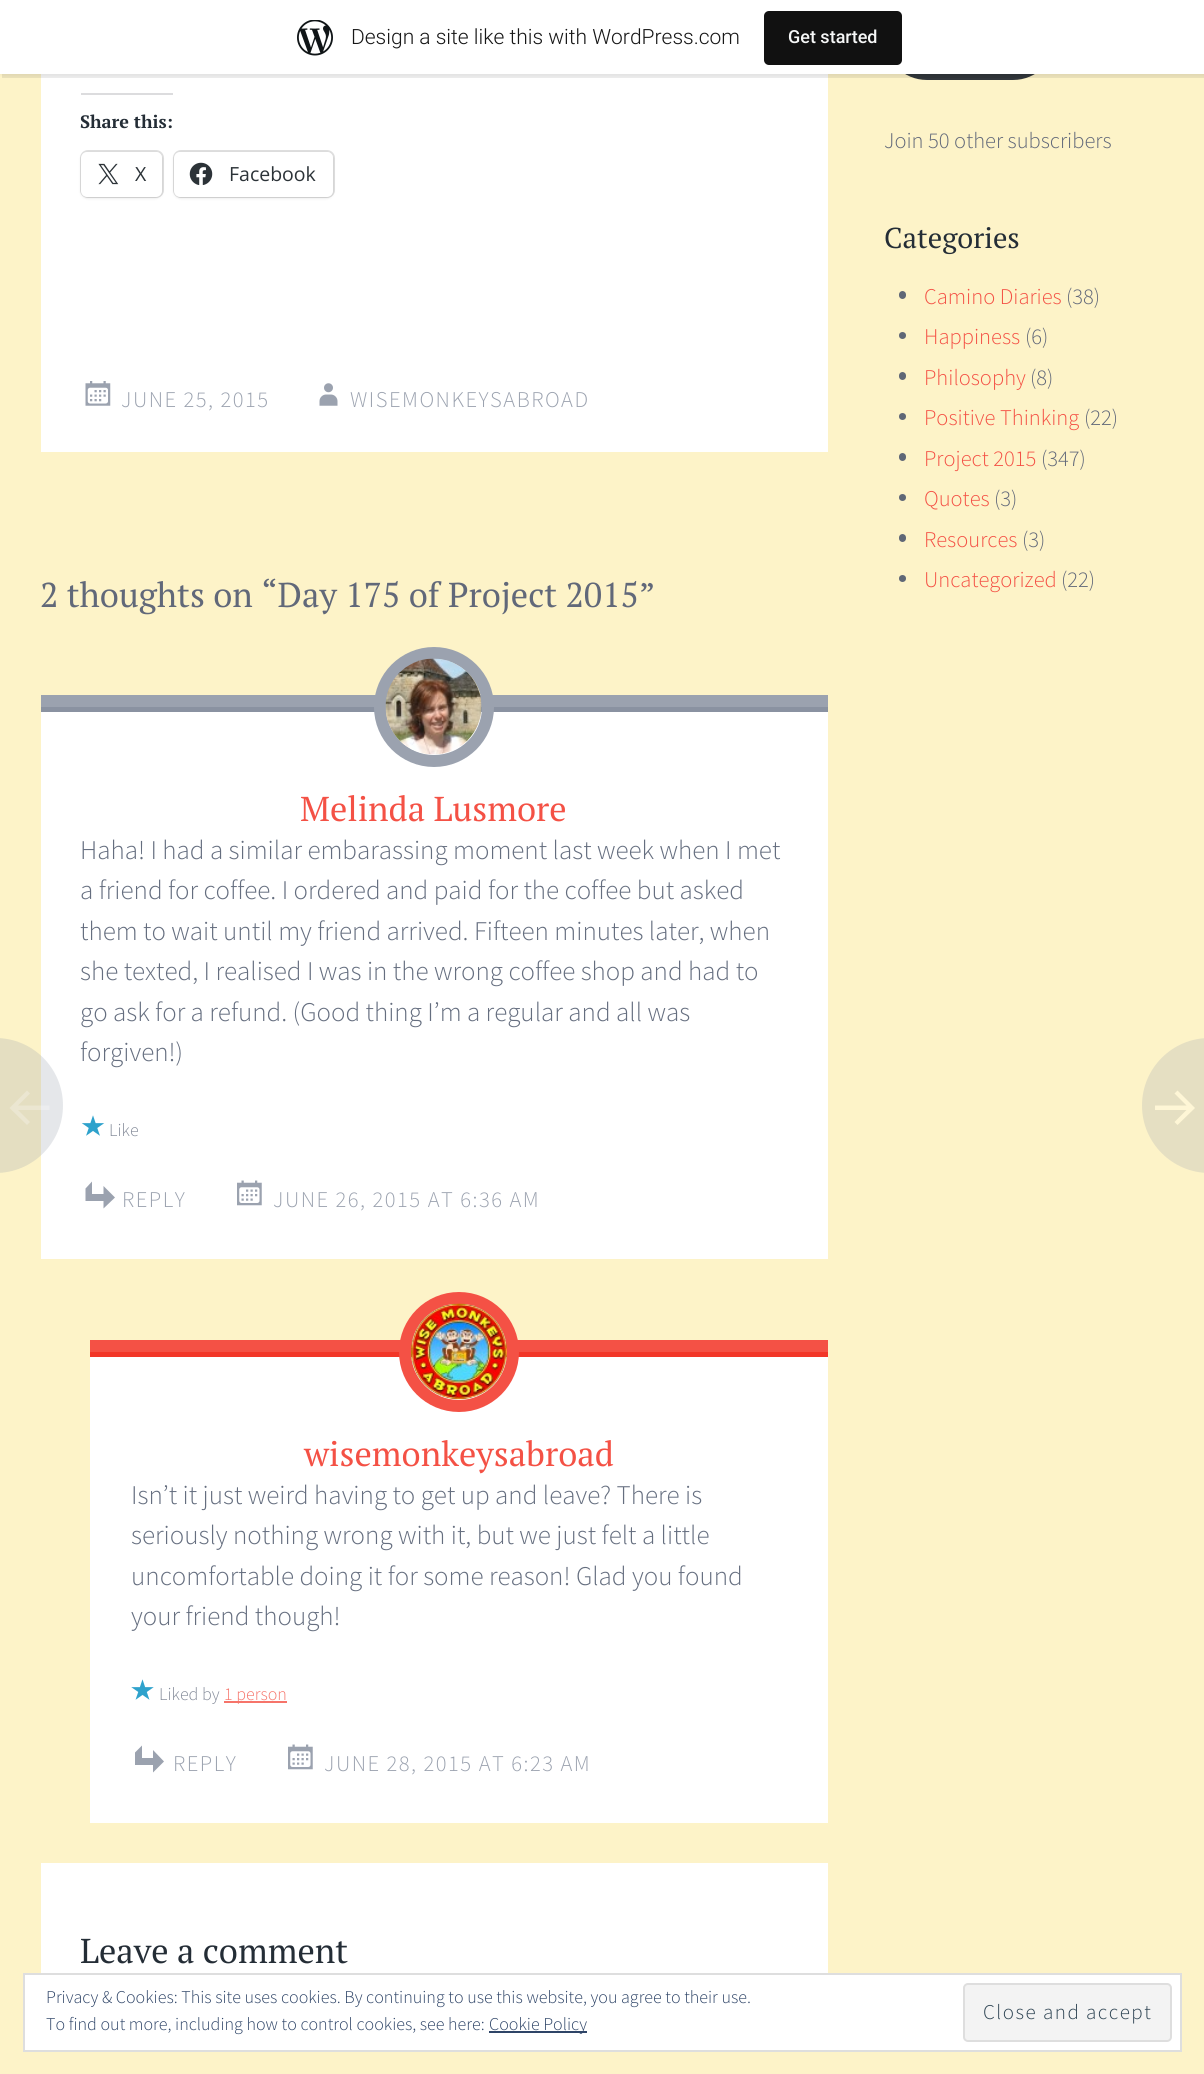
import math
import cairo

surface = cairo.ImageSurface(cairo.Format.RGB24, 1204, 2074)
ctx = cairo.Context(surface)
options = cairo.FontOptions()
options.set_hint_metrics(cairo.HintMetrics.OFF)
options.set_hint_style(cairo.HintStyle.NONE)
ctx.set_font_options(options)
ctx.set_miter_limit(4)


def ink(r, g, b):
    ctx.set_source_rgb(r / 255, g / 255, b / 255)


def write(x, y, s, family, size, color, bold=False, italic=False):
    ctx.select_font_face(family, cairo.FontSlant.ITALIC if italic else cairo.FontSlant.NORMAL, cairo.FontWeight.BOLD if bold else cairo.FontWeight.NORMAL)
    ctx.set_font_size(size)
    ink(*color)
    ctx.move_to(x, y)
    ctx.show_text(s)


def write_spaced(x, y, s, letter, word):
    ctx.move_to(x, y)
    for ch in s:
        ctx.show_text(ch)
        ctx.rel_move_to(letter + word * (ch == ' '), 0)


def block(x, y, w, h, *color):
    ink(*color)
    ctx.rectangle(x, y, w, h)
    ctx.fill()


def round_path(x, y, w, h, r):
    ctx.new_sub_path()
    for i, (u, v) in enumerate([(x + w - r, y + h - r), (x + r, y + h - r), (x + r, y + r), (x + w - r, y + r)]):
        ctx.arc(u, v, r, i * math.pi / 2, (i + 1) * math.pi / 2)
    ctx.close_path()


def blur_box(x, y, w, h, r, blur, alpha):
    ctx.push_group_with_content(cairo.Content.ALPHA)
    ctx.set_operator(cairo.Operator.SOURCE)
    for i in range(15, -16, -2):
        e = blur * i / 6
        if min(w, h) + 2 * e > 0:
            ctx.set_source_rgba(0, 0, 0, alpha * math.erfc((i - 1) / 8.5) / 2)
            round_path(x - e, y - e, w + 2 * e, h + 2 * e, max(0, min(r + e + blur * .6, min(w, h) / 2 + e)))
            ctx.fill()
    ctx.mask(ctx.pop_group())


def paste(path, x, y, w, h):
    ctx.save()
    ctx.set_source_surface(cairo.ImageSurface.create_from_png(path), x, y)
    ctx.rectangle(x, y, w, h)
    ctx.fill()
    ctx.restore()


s1 = dict(family="Roboto Light", size=21, color=(23, 23, 23))
s2 = dict(family="Roboto Medium", size=18, color=(246, 247, 247))
s3 = dict(family="PT Serif", size=18, color=(36, 45, 54), bold=True)
s4 = dict(family="Open Sans", size=19.5, color=(44, 51, 56))
s5 = dict(family="PT Serif", size=34.5, color=(97, 104, 121))
s6 = dict(family="PT Serif", size=34.5, color=(244, 81, 69))
s7 = dict(family="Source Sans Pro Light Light", size=27, color=(101, 110, 127))
s8 = dict(family="Source Sans Pro Light Light", size=18, color=(132, 139, 153))
s9 = dict(family="Source Sans Pro Light Light", size=18, color=(246, 116, 106))
s10 = dict(family="PT Serif", size=34.5, color=(36, 45, 54))
s11 = dict(family="Source Sans Pro Light Light", size=22.5, color=(97, 104, 121))
s12 = dict(family="PT Serif", size=28.75, color=(36, 45, 54))
s13 = dict(family="Source Sans Pro Light Light", size=22.5, color=(244, 81, 69))
s14 = dict(family="Source Sans Pro Light Light", size=18, color=(46, 68, 103))

ink(253, 243, 200)
ctx.paint()
block(41, 74, 787, 378, 255, 255, 255)
ink(50, 55, 60)
round_path(884, -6, 172, 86, 43)
ctx.fill()
ink(0, 0, 0)
blur_box(0, 2, 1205, 73, 0, 1.5, 0.05)
ctx.set_source_rgba(0, 0, 0, 0.08)
ctx.new_path()
ctx.move_to(2, 74)
ctx.line_to(2, 78)
ctx.line_to(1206, 78)
ctx.line_to(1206, 5)
ctx.line_to(1204, 5)
ctx.line_to(1204, 74)
ctx.close_path()
ctx.fill()
block(0, 0, 1204, 74, 255, 255, 255)
paste("pic1.png", 297, 20, 36, 36)
write(351, 44, "Design a site like this with WordPress.com", **s1)
ink(17, 17, 17)
round_path(764, 11, 138, 54, 5)
ctx.fill()
write(788, 43, "Get started", **s2)
block(81, 93, 92, 2, 220, 220, 222)
write(80, 128, "Share this:", **s3)
round_path(81, 151, 82, 46, 7)
ink(224, 224, 224)
ctx.stroke()
ink(0, 0, 0)
blur_box(81, 153, 81, 45, 6, 1.5, 0.12)
ink(255, 255, 255)
round_path(81, 152, 81, 45, 6)
ctx.fill()
paste("pic2.png", 98, 163, 21, 22)
write(135, 181, "X", **s4)
round_path(174, 151, 160, 46, 7)
ink(224, 224, 224)
ctx.stroke()
ink(0, 0, 0)
blur_box(174, 153, 159, 45, 6, 1.5, 0.12)
ink(255, 255, 255)
round_path(174, 152, 159, 45, 6)
ctx.fill()
paste("pic3.png", 189, 162, 24, 23)
write(229, 181, "Facebook", **s4)
paste("pic4.png", 85, 381, 26, 25)
ctx.select_font_face("Source Sans Pro Light Light")
ctx.set_font_size(22.5)
ink(155, 162, 175)
write_spaced(121, 407, "JUNE 25, 2015", 1.5, 0)
paste("pic5.png", 319, 383, 19, 23)
write_spaced(350, 407, "WISEMONKEYSABROAD", 1.5, 0)
write(40, 607, "2 thoughts on “Day 175 of Project 2015”", **s5)
block(41, 712, 787, 547, 255, 255, 255)
block(41, 695, 787, 12, 155, 162, 175)
block(41, 707, 787, 5, 138, 146, 161)
ctx.new_path()
ctx.arc(434, 707, 54, 0, 2 * math.pi)
ink(155, 162, 175)
ctx.set_line_width(12)
ctx.stroke()
paste("pic6.png", 385, 658, 97, 97)
write(300, 821, "Melinda Lusmore", **s6)
write(80, 859, "Haha! I had a similar embarassing moment last week when I met", **s7)
write(80, 899, "a friend for coffee. I ordered and paid for the coffee but asked", **s7)
write(80, 940, "them to wait until my friend arrived. Fifteen minutes later, when", **s7)
write(80, 980, "she texted, I realised I was in the wrong coffee shop and had to", **s7)
write(80, 1021, "go ask for a refund. (Good thing I’m a regular and all was", **s7)
write(80, 1061, "forgiven!)", **s7)
paste("pic7.png", 81, 1115, 24, 21)
write(109, 1136, "Like", **s8)
ink(155, 162, 175)
ctx.new_path()
ctx.move_to(115, 1197.5)
ctx.line_to(103.5, 1208.5)
ctx.line_to(103.5, 1201)
ctx.line_to(85.5, 1201)
ctx.line_to(85.5, 1188.5)
ctx.line_to(92, 1181.5)
ctx.line_to(92, 1194)
ctx.line_to(103.5, 1194)
ctx.line_to(103.5, 1186)
ctx.close_path()
ctx.fill()
ctx.set_font_size(22.5)
write_spaced(122, 1207, "REPLY", 1.5, 0)
paste("pic8.png", 237, 1180, 25, 26)
write_spaced(273, 1207, "JUNE 26, 2015 AT 6:36 AM", 1.5, 0)
block(90, 1357, 738, 466, 255, 255, 255)
block(90, 1340, 738, 12, 244, 81, 69)
block(90, 1352, 738, 5, 242, 54, 40)
ctx.new_path()
ctx.arc(459, 1352, 54, 0, 2 * math.pi)
ink(244, 81, 69)
ctx.stroke()
paste("pic9.png", 411, 1303, 96, 97)
write(304, 1466, "wisemonkeysabroad", **s6)
write(131, 1504, "Isn’t it just weird having to get up and leave? There is", **s7)
write(131, 1544, "seriously nothing wrong with it, but we just felt a little", **s7)
write(131, 1585, "uncomfortable doing it for some reason! Glad you found", **s7)
write(131, 1625, "your friend though!", **s7)
paste("pic10.png", 131, 1679, 23, 21)
write(159, 1700, "Liked by", **s8)
block(224, 1701, 63, 2, 246, 116, 106)
write(224, 1700, "1 person", **s9)
ink(155, 162, 175)
ctx.new_path()
ctx.move_to(164, 1761.5)
ctx.line_to(153, 1772.5)
ctx.line_to(153, 1765)
ctx.line_to(135, 1765)
ctx.line_to(135, 1752.5)
ctx.line_to(142, 1745.5)
ctx.line_to(142, 1758)
ctx.line_to(153, 1758)
ctx.line_to(153, 1750)
ctx.close_path()
ctx.fill()
ctx.set_font_size(22.5)
write_spaced(173, 1771, "REPLY", 1.5, 0)
paste("pic8.png", 288, 1744, 25, 26)
write_spaced(324, 1771, "JUNE 28, 2015 AT 6:23 AM", 1.5, 0)
block(41, 1863, 787, 110, 255, 255, 255)
write(80, 1963, "Leave a comment", **s10)
ctx.set_source_rgba(0.608, 0.635, 0.686, 0.25)
round_path(-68, 1038, 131, 135, 67.5)
ctx.fill()
ctx.set_source_rgba(1, 1, 1, 0.25)
ctx.new_path()
ctx.move_to(27, 1090.5)
ctx.line_to(30, 1093.5)
ctx.line_to(18, 1105.5)
ctx.line_to(49.5, 1105.5)
ctx.line_to(49.5, 1110)
ctx.line_to(18, 1110)
ctx.line_to(30, 1122)
ctx.line_to(27, 1125)
ctx.line_to(9.5, 1108)
ctx.close_path()
ctx.fill()
ink(229, 223, 194)
round_path(1142, 1038, 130, 135, 67.5)
ctx.fill()
ink(254, 246, 214)
ctx.new_path()
ctx.move_to(1177.5, 1090.5)
ctx.line_to(1195, 1108)
ctx.line_to(1177.5, 1125)
ctx.line_to(1174.5, 1122)
ctx.line_to(1186.5, 1110)
ctx.line_to(1155, 1110)
ctx.line_to(1155, 1105.5)
ctx.line_to(1186.5, 1105.5)
ctx.line_to(1174.5, 1093.5)
ctx.close_path()
ctx.fill()
write(884, 148, "Join 50 other subscribers", **s11)
write(884, 248, "Categories", **s12)
ink(95, 103, 118)
round_path(899, 291, 7, 8, 3.5)
ctx.fill()
write(924, 304, "Camino Diaries", **s13)
write(1066, 304, "(38)", **s11)
ink(95, 103, 118)
ctx.new_path()
ctx.arc(902.5, 335.5, 3.5, 0, 2 * math.pi)
ctx.fill()
write(924, 344, "Happiness", **s13)
write(1025, 344, "(6)", **s11)
ink(95, 103, 118)
round_path(899, 372, 7, 8, 3.5)
ctx.fill()
write(924, 385, "Philosophy", **s13)
write(1030, 385, "(8)", **s11)
ink(95, 103, 118)
ctx.new_path()
ctx.arc(902.5, 416.5, 3.5, 0, 2 * math.pi)
ctx.fill()
write(924, 425, "Positive Thinking", **s13)
write(1084, 425, "(22)", **s11)
ink(95, 103, 118)
round_path(899, 453, 7, 8, 3.5)
ctx.fill()
write(924, 466, "Project 2015", **s13)
write(1041, 466, "(347)", **s11)
ink(95, 103, 118)
ctx.new_path()
ctx.arc(902.5, 497.5, 3.5, 0, 2 * math.pi)
ctx.fill()
write(924, 506, "Quotes", **s13)
write(994, 506, "(3)", **s11)
ink(95, 103, 118)
round_path(899, 534, 7, 8, 3.5)
ctx.fill()
write(924, 547, "Resources", **s13)
write(1022, 547, "(3)", **s11)
ink(95, 103, 118)
ctx.new_path()
ctx.arc(902.5, 578.5, 3.5, 0, 2 * math.pi)
ctx.fill()
write(924, 587, "Uncategorized", **s13)
write(1061, 587, "(22)", **s11)
ink(255, 255, 255)
ctx.rectangle(24, 1974, 1157, 77)
ctx.fill_preserve()
ink(222, 222, 222)
ctx.set_line_width(2)
ctx.stroke()
write(46, 2003, "Privacy & Cookies: This site uses cookies. By continuing to use this website, you agree to their use.", **s14)
write(46, 2030, "To find out more, including how to control cookies, see here:", **s14)
block(489, 2031, 98, 2, 46, 68, 103)
write(489, 2030, "Cookie Policy", **s14)
ink(243, 243, 243)
round_path(964, 1984, 207, 57, 4)
ctx.fill_preserve()
ink(222, 222, 222)
ctx.stroke()
ctx.set_font_size(21)
ink(46, 68, 83)
write_spaced(983, 2019, "Close and accept", 1.5, 0)
surface.write_to_png("screenshot.png")
